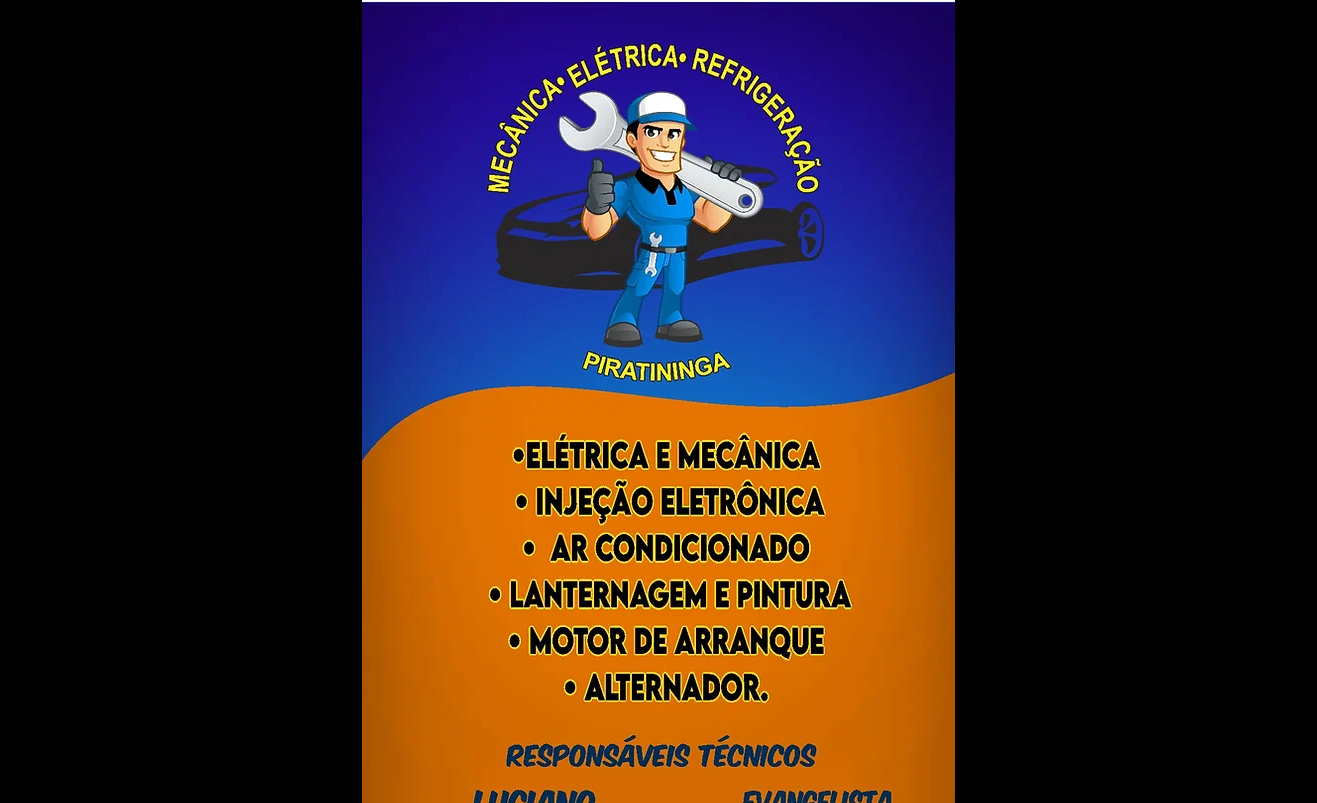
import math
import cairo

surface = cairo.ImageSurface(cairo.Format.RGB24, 1317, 803)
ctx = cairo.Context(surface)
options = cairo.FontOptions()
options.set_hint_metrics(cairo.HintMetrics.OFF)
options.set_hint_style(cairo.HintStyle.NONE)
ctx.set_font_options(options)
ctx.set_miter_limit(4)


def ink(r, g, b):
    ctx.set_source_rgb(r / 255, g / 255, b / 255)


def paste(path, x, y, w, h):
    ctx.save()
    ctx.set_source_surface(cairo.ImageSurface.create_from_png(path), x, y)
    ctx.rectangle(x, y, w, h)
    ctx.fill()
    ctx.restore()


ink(0, 0, 0)
ctx.paint()
paste("pic1.png", 362, 0, 593, 803)
surface.write_to_png("screenshot.png")
